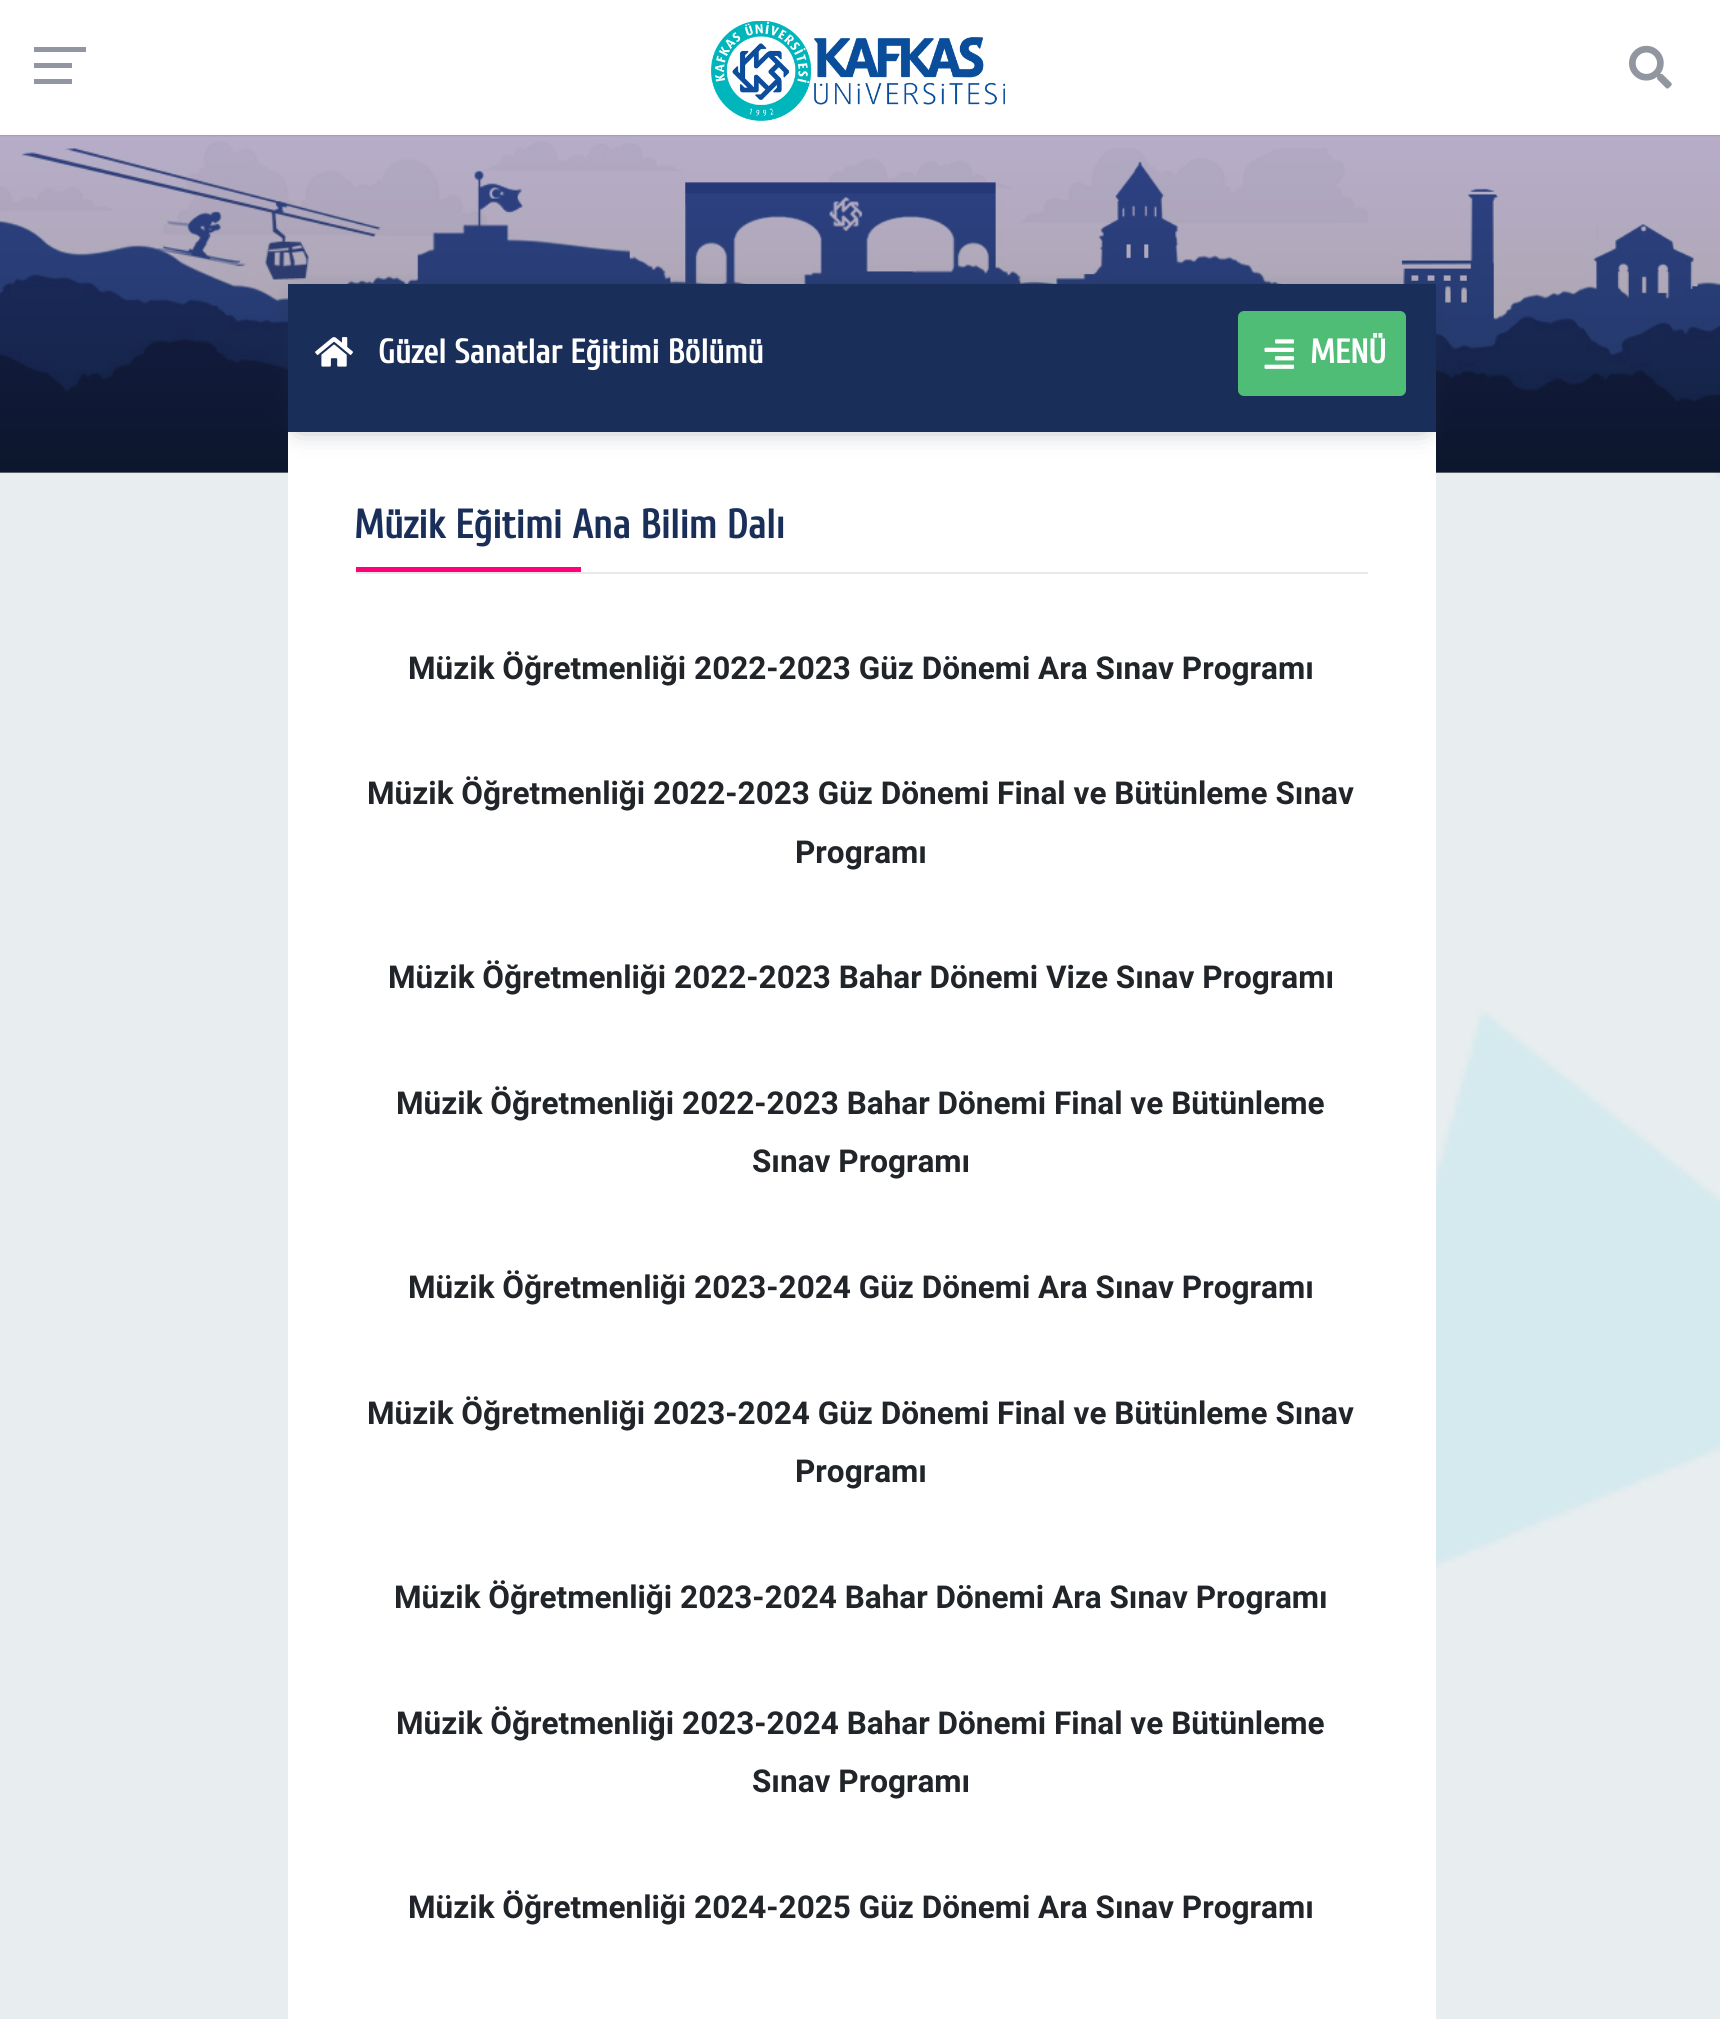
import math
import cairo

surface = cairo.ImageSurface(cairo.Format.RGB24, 1720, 2019)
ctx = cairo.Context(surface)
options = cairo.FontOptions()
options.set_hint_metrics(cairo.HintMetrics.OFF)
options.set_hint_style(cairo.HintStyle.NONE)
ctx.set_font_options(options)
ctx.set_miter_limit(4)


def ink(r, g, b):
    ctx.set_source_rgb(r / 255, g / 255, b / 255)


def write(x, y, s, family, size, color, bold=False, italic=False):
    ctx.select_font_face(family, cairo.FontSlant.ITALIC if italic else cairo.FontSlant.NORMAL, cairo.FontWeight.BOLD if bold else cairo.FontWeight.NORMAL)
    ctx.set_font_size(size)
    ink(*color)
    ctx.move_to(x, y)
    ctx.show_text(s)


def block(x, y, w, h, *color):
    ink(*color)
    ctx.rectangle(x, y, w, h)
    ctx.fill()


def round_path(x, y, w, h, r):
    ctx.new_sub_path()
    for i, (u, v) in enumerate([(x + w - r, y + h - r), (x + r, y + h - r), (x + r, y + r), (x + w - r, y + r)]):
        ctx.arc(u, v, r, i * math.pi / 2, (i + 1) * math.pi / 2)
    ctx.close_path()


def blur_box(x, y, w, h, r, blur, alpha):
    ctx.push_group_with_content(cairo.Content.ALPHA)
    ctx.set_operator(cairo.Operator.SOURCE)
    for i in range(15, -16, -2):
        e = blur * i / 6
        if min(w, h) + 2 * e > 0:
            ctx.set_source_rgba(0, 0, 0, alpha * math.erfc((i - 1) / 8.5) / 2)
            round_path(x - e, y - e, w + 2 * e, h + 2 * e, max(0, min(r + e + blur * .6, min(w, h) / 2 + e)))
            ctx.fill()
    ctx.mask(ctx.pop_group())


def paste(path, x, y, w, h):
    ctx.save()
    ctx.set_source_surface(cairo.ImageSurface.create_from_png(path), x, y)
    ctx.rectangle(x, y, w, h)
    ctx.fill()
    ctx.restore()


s1 = dict(family="Cuprum", size=33.75, color=(255, 255, 255), bold=True)
s2 = dict(family="Cuprum", size=40.5, color=(25, 47, 89), bold=True)
s3 = dict(family="Roboto", size=31.5, color=(33, 37, 41), bold=True)

ink(232, 238, 239)
ctx.paint()
paste("pic4.png", 1436, 472, 284, 1096)
paste("pic3.png", 0, 135, 1720, 338)
gradient = cairo.LinearGradient(861, 135, 861, 473)
gradient.add_color_stop_rgba(0, 0.192, 0.153, 0.514, 0.3)
gradient.add_color_stop_rgba(1, 0, 0, 0, 0.3)
ctx.set_source(gradient)
ctx.rectangle(0, 135, 1720, 338)
ctx.fill()
ink(0, 0, 0)
blur_box(0, 0, 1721, 135, 0, 1, 0.3)
block(0, 0, 1720, 135, 255, 255, 255)
block(34, 63, 38, 5, 145, 150, 160)
block(34, 47, 52, 5, 145, 150, 160)
block(34, 79, 38, 5, 145, 150, 160)
paste("pic1.png", 711, 21, 294, 100)
paste("pic2.png", 1629, 45, 43, 44)
block(288, 432, 1148, 1587, 255, 255, 255)
ink(37, 51, 66)
blur_box(299, 299, 1125, 126, 0, 13.5, 0.5)
block(288, 284, 1148, 148, 25, 47, 89)
paste("pic5.png", 315, 337, 38, 30)
write(378, 363, "Güzel Sanatlar Eğitimi Bölümü", **s1)
ink(80, 189, 119)
round_path(1238, 311, 168, 85, 6)
ctx.fill()
paste("pic6.png", 1264, 339, 31, 30)
write(1310, 363, "MENÜ", **s1)
block(356, 572, 1012, 2, 232, 232, 232)
write(354, 538, "Müzik Eğitimi Ana Bilim Dalı", **s2)
block(356, 567, 225, 5, 255, 0, 121)
write(408, 679, "Müzik Öğretmenliği 2022-2023 Güz Dönemi Ara Sınav Programı", **s3)
write(367, 804, "Müzik Öğretmenliği 2022-2023 Güz Dönemi Final ve Bütünleme Sınav", **s3)
write(795, 863, "Programı", **s3)
write(388, 988, "Müzik Öğretmenliği 2022-2023 Bahar Dönemi Vize Sınav Programı", **s3)
write(396, 1114, "Müzik Öğretmenliği 2022-2023 Bahar Dönemi Final ve Bütünleme", **s3)
write(752, 1172, "Sınav Programı", **s3)
write(408, 1298, "Müzik Öğretmenliği 2023-2024 Güz Dönemi Ara Sınav Programı", **s3)
write(367, 1424, "Müzik Öğretmenliği 2023-2024 Güz Dönemi Final ve Bütünleme Sınav", **s3)
write(795, 1482, "Programı", **s3)
write(394, 1608, "Müzik Öğretmenliği 2023-2024 Bahar Dönemi Ara Sınav Programı", **s3)
write(396, 1734, "Müzik Öğretmenliği 2023-2024 Bahar Dönemi Final ve Bütünleme", **s3)
write(752, 1792, "Sınav Programı", **s3)
write(408, 1918, "Müzik Öğretmenliği 2024-2025 Güz Dönemi Ara Sınav Programı", **s3)
surface.write_to_png("screenshot.png")
